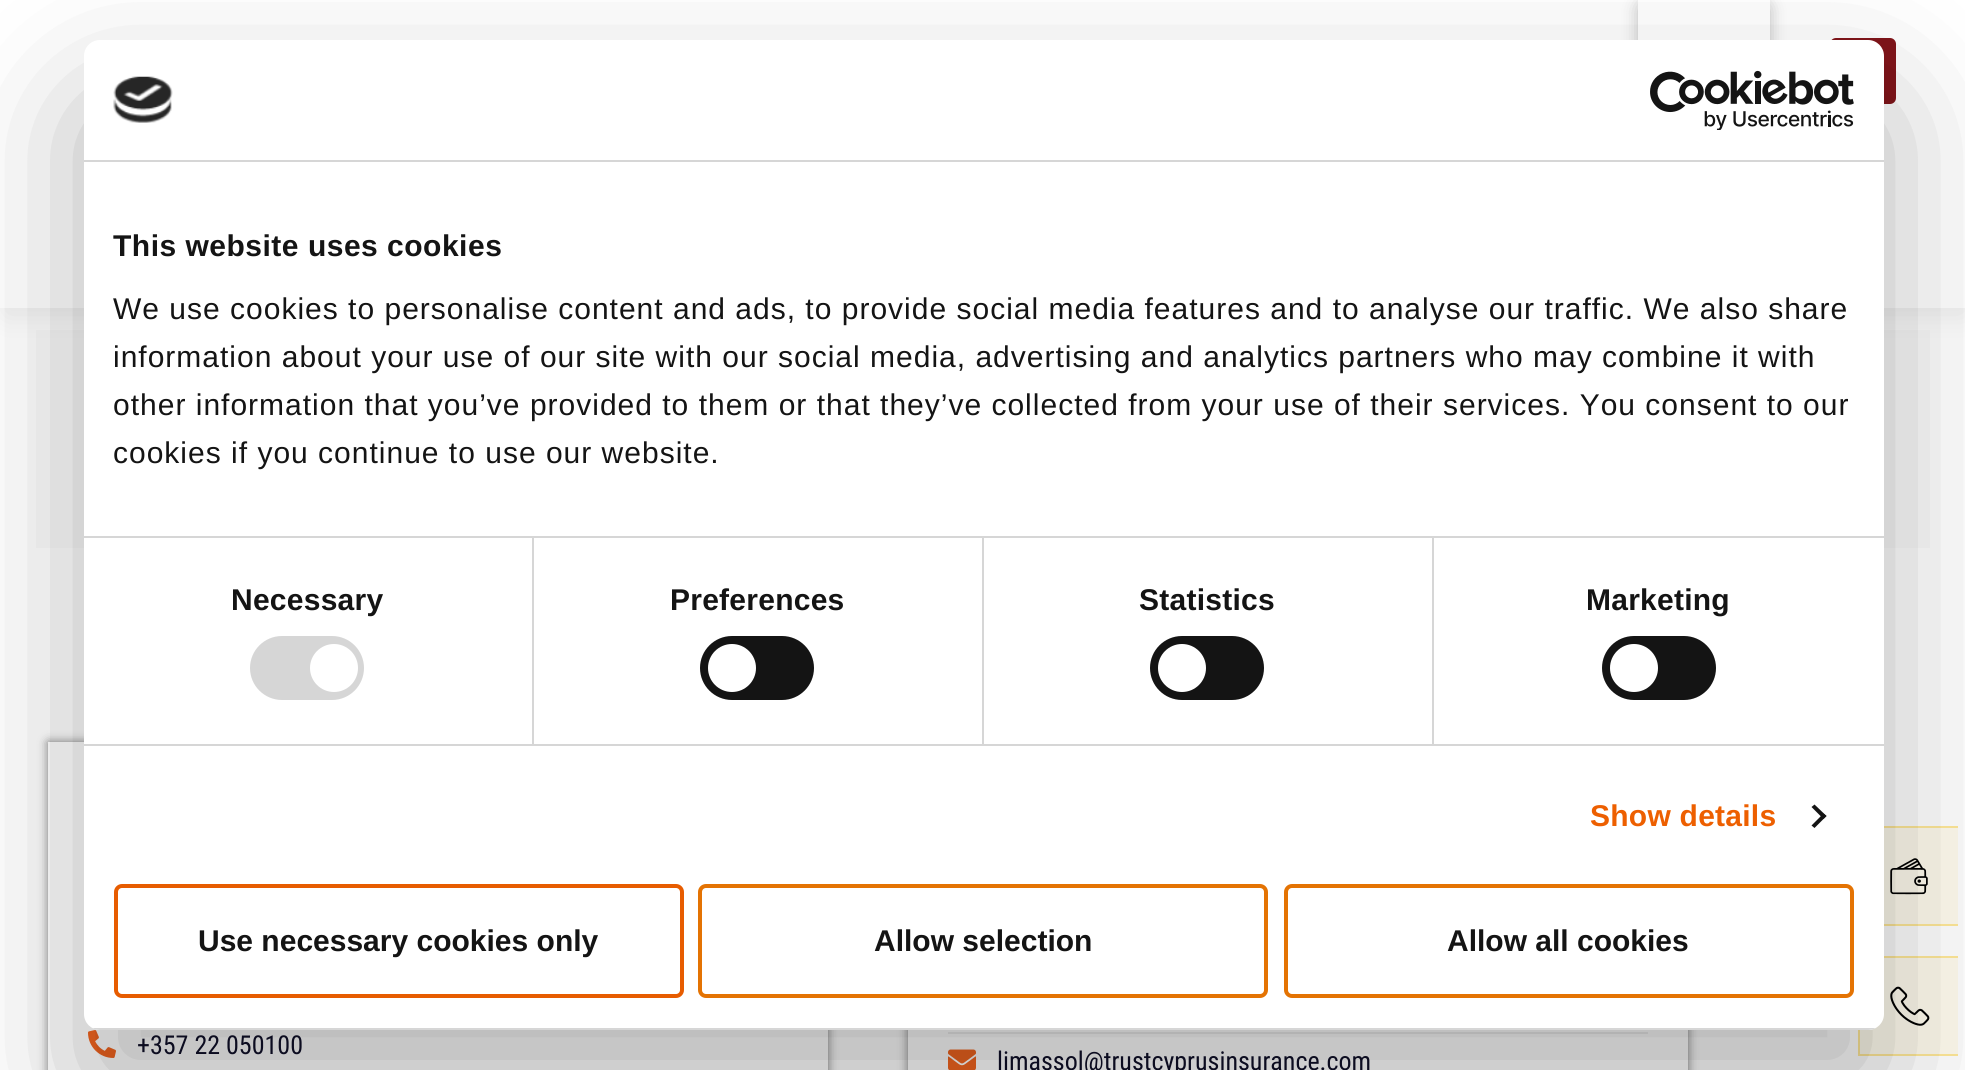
import math
import cairo

surface = cairo.ImageSurface(cairo.Format.RGB24, 1965, 1070)
ctx = cairo.Context(surface)
options = cairo.FontOptions()
options.set_hint_metrics(cairo.HintMetrics.OFF)
options.set_hint_style(cairo.HintStyle.NONE)
ctx.set_font_options(options)
ctx.set_miter_limit(4)


def ink(r, g, b):
    ctx.set_source_rgb(r / 255, g / 255, b / 255)


def write(x, y, s, family, size, color, bold=False, italic=False):
    ctx.select_font_face(family, cairo.FontSlant.ITALIC if italic else cairo.FontSlant.NORMAL, cairo.FontWeight.BOLD if bold else cairo.FontWeight.NORMAL)
    ctx.set_font_size(size)
    ink(*color)
    ctx.move_to(x, y)
    ctx.show_text(s)


def write_spaced(x, y, s, letter, word):
    ctx.move_to(x, y)
    for ch in s:
        ctx.show_text(ch)
        ctx.rel_move_to(letter + word * (ch == ' '), 0)


def block(x, y, w, h, *color):
    ink(*color)
    ctx.rectangle(x, y, w, h)
    ctx.fill()


def round_path(x, y, w, h, r):
    ctx.new_sub_path()
    for i, (u, v) in enumerate([(x + w - r, y + h - r), (x + r, y + h - r), (x + r, y + r), (x + w - r, y + r)]):
        ctx.arc(u, v, r, i * math.pi / 2, (i + 1) * math.pi / 2)
    ctx.close_path()


def blur_box(x, y, w, h, r, blur, alpha):
    ctx.push_group_with_content(cairo.Content.ALPHA)
    ctx.set_operator(cairo.Operator.SOURCE)
    for i in range(15, -16, -2):
        e = blur * i / 6
        if min(w, h) + 2 * e > 0:
            ctx.set_source_rgba(0, 0, 0, alpha * math.erfc((i - 1) / 8.5) / 2)
            round_path(x - e, y - e, w + 2 * e, h + 2 * e, max(0, min(r + e + blur * .6, min(w, h) / 2 + e)))
            ctx.fill()
    ctx.mask(ctx.pop_group())


def paste(path, x, y, w, h):
    ctx.save()
    ctx.set_source_surface(cairo.ImageSurface.create_from_png(path), x, y)
    ctx.rectangle(x, y, w, h)
    ctx.fill()
    ctx.restore()


s1 = dict(family="Liberation Sans", size=30, color=(20, 20, 20), bold=True)
s2 = dict(family="Roboto Condensed", size=26, color=(12, 12, 32))

ink(255, 255, 255)
ctx.paint()
block(36, 330, 1894, 218, 250, 250, 250)
ink(207, 207, 207)
blur_box(6, 14, 1958, 300, 0, 13, 0.4)
block(0, 0, 1965, 308, 255, 255, 255)
ink(130, 21, 26)
round_path(1830, 38, 66, 66, 6)
ctx.fill()
ink(0, 0, 0)
blur_box(1638, 0, 132, 116, 10, 8, 0.25)
block(1638, 0, 132, 40, 255, 255, 255)
block(1884, 828, 74, 96, 255, 251, 237)
block(1884, 826, 74, 2, 255, 232, 152)
block(1884, 924, 74, 2, 255, 232, 152)
paste("pic3.png", 1890, 858, 38, 37)
block(1860, 958, 98, 96, 255, 251, 237)
block(1884, 956, 74, 2, 255, 232, 152)
block(1858, 1054, 100, 2, 255, 232, 152)
block(1858, 1030, 2, 26, 255, 232, 152)
paste("pic4.png", 1890, 986, 40, 40)
ctx.save()
ctx.set_fill_rule(cairo.FillRule.EVEN_ODD)
ctx.new_path()
ctx.move_to(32, 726)
ctx.line_to(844, 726)
ctx.line_to(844, 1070)
ctx.line_to(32, 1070)
ctx.close_path()
ctx.move_to(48, 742)
ctx.line_to(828, 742)
ctx.line_to(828, 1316)
ctx.line_to(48, 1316)
ctx.close_path()
ctx.clip()
ink(0, 0, 0)
blur_box(48, 742, 780, 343, 0, 5, 0.5)
ctx.restore()
paste("pic5.png", 88, 1030, 28, 28)
ctx.save()
ctx.set_fill_rule(cairo.FillRule.EVEN_ODD)
ctx.new_path()
ctx.move_to(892, 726)
ctx.line_to(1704, 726)
ctx.line_to(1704, 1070)
ctx.line_to(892, 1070)
ctx.close_path()
ctx.move_to(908, 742)
ctx.line_to(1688, 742)
ctx.line_to(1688, 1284)
ctx.line_to(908, 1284)
ctx.close_path()
ctx.clip()
ink(0, 0, 0)
blur_box(908, 742, 780, 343, 0, 5, 0.5)
ctx.restore()
block(948, 1032, 700, 2, 237, 237, 237)
paste("pic6.png", 948, 1049, 28, 21)
ink(0, 0, 0)
blur_box(84, 104, 1800, 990, 16, 68, 0.3)
ink(255, 255, 255)
round_path(84, 40, 1800, 990, 16)
ctx.fill()
block(84, 160, 1800, 2, 214, 214, 214)
paste("pic1.png", 113, 76, 60, 47)
paste("pic2.png", 1650, 70, 204, 60)
block(84, 536, 1800, 2, 214, 214, 214)
ctx.select_font_face("Liberation Sans", cairo.FontSlant.NORMAL, cairo.FontWeight.BOLD)
ctx.set_font_size(30)
ink(20, 20, 20)
write_spaced(113, 256, "This website uses cookies", 0.5, 0)
ctx.select_font_face("Liberation Sans")
write_spaced(113, 319, "We use cookies to personalise content and ads, to provide social media features and to analyse our traffic. We also share", 1, 0)
write_spaced(113, 367, "information about your use of our site with our social media, advertising and analytics partners who may combine it with", 1, 0)
write_spaced(113, 415, "other information that you’ve provided to them or that they’ve collected from your use of their services. You consent to our", 1, 0)
write_spaced(113, 463, "cookies if you continue to use our website.", 1, 0)
block(84, 744, 1800, 2, 214, 214, 214)
block(532, 538, 2, 206, 214, 214, 214)
ctx.select_font_face("Liberation Sans", cairo.FontSlant.NORMAL, cairo.FontWeight.BOLD)
ink(20, 20, 20)
write_spaced(231, 610, "Necessary", 0.25, 0)
ink(214, 214, 214)
round_path(250, 636, 114, 64, 32)
ctx.fill()
ink(255, 255, 255)
ctx.arc(334, 668, 24, 0, 2 * math.pi)
ctx.fill()
block(982, 538, 2, 206, 214, 214, 214)
ink(20, 20, 20)
write_spaced(670, 610, "Preferences", 0.25, 0)
round_path(700, 636, 114, 64, 32)
ctx.fill()
ink(255, 255, 255)
ctx.arc(732, 668, 24, 0, 2 * math.pi)
ctx.fill()
block(1432, 538, 2, 206, 214, 214, 214)
ink(20, 20, 20)
write_spaced(1139, 610, "Statistics", 0.25, 0)
round_path(1150, 636, 114, 64, 32)
ctx.fill()
ink(255, 255, 255)
ctx.arc(1182, 668, 24, 0, 2 * math.pi)
ctx.fill()
ink(20, 20, 20)
write_spaced(1586, 610, "Marketing", 0.25, 0)
round_path(1602, 636, 114, 64, 32)
ctx.fill()
ink(255, 255, 255)
ctx.arc(1634, 668, 24, 0, 2 * math.pi)
ctx.fill()
ink(237, 95, 0)
write_spaced(1590, 826, "Show details", 0.25, 0)
ink(20, 20, 20)
ctx.new_path()
ctx.move_to(1814.5, 804.5)
ctx.line_to(1826.5, 816)
ctx.line_to(1823.5, 819)
ctx.line_to(1811.5, 807)
ctx.close_path()
ctx.fill()
ctx.new_path()
ctx.move_to(1823.5, 813.5)
ctx.line_to(1826.5, 816)
ctx.line_to(1814.5, 828)
ctx.line_to(1811.5, 825.5)
ctx.close_path()
ctx.fill()
ctx.save()
round_path(84, 40, 1800, 990, 16)
ctx.clip()
block(84, 1028, 1800, 2, 214, 214, 214)
ctx.restore()
round_path(116, 886, 566, 110, 6)
ink(231, 92, 0)
ctx.set_line_width(4)
ctx.stroke()
write(198, 951, "Use necessary cookies only", **s1)
round_path(700, 886, 566, 110, 6)
ink(228, 115, 3)
ctx.stroke()
write(874, 951, "Allow selection", **s1)
round_path(1286, 886, 566, 110, 6)
ink(228, 115, 3)
ctx.stroke()
write(1447, 951, "Allow all cookies", **s1)
write(137, 1054, "+357 22 050100", **s2)
write(997, 1070, "limassol@trustcyprusinsurance.com", **s2)
surface.write_to_png("screenshot.png")
